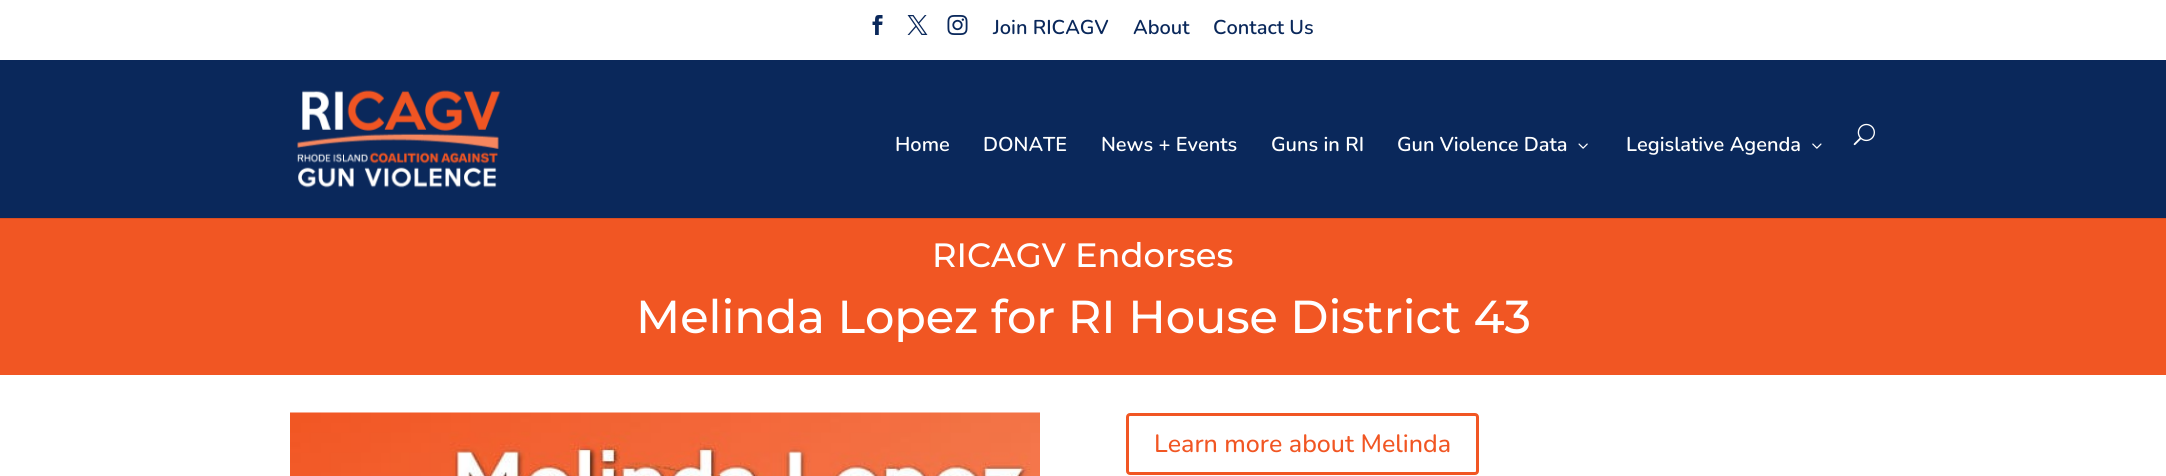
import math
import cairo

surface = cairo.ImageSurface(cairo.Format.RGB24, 2166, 476)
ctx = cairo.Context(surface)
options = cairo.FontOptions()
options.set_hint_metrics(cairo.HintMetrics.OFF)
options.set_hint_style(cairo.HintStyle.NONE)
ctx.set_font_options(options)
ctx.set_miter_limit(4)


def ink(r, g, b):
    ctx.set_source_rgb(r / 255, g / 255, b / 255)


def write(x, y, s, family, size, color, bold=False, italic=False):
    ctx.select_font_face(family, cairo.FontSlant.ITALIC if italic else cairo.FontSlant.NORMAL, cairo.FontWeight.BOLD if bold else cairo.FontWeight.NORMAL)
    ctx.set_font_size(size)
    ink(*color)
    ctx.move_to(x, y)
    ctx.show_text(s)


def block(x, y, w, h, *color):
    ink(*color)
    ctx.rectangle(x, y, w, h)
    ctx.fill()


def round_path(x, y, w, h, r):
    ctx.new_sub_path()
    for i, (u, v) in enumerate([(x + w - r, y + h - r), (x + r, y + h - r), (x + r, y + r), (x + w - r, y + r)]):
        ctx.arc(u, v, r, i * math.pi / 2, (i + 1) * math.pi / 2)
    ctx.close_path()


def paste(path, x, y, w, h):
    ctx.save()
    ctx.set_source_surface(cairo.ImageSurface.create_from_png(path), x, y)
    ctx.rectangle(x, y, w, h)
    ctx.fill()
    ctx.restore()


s1 = dict(family="Nunito SemiBold", size=20, color=(10, 40, 91))
s2 = dict(family="Nunito SemiBold", size=20, color=(255, 255, 255))
s3 = dict(family="Montserrat Medium", size=33.75, color=(255, 255, 255))
s4 = dict(family="Montserrat Medium", size=46.25, color=(255, 255, 255))
s5 = dict(family="Nunito Medium", size=25, color=(241, 86, 35))

ink(255, 255, 255)
ctx.paint()
paste("pic1.png", 872, 15, 11, 20)
paste("pic2.png", 907, 15, 21, 20)
paste("pic3.png", 947, 15, 21, 20)
write(993, 34, "Join RICAGV", **s1)
write(1133, 34, "About", **s1)
write(1213, 34, "Contact Us", **s1)
block(0, 218, 2166, 1, 217, 77, 32)
block(0, 60, 2166, 158, 10, 40, 91)
paste("pic4.png", 297, 90, 204, 98)
write(895, 151, "Home", **s2)
write(983, 151, "DONATE", **s2)
write(1101, 151, "News + Events", **s2)
write(1271, 151, "Guns in RI", **s2)
write(1397, 151, "Gun Violence Data", **s2)
paste("pic5.png", 1578, 143, 10, 6)
write(1626, 151, "Legislative Agenda", **s2)
paste("pic6.png", 1812, 143, 10, 6)
paste("pic7.png", 1853, 123, 22, 23)
block(0, 219, 2166, 156, 241, 86, 35)
write(932, 267, "RICAGV Endorses", **s3)
write(636, 333, "Melinda Lopez for RI House District 43", **s4)
paste("pic8.png", 290, 412, 750, 64)
round_path(1127.5, 414.5, 350, 59, 2.5)
ink(241, 86, 35)
ctx.set_line_width(3)
ctx.stroke()
write(1154, 452, "Learn more about Melinda", **s5)
surface.write_to_png("screenshot.png")
